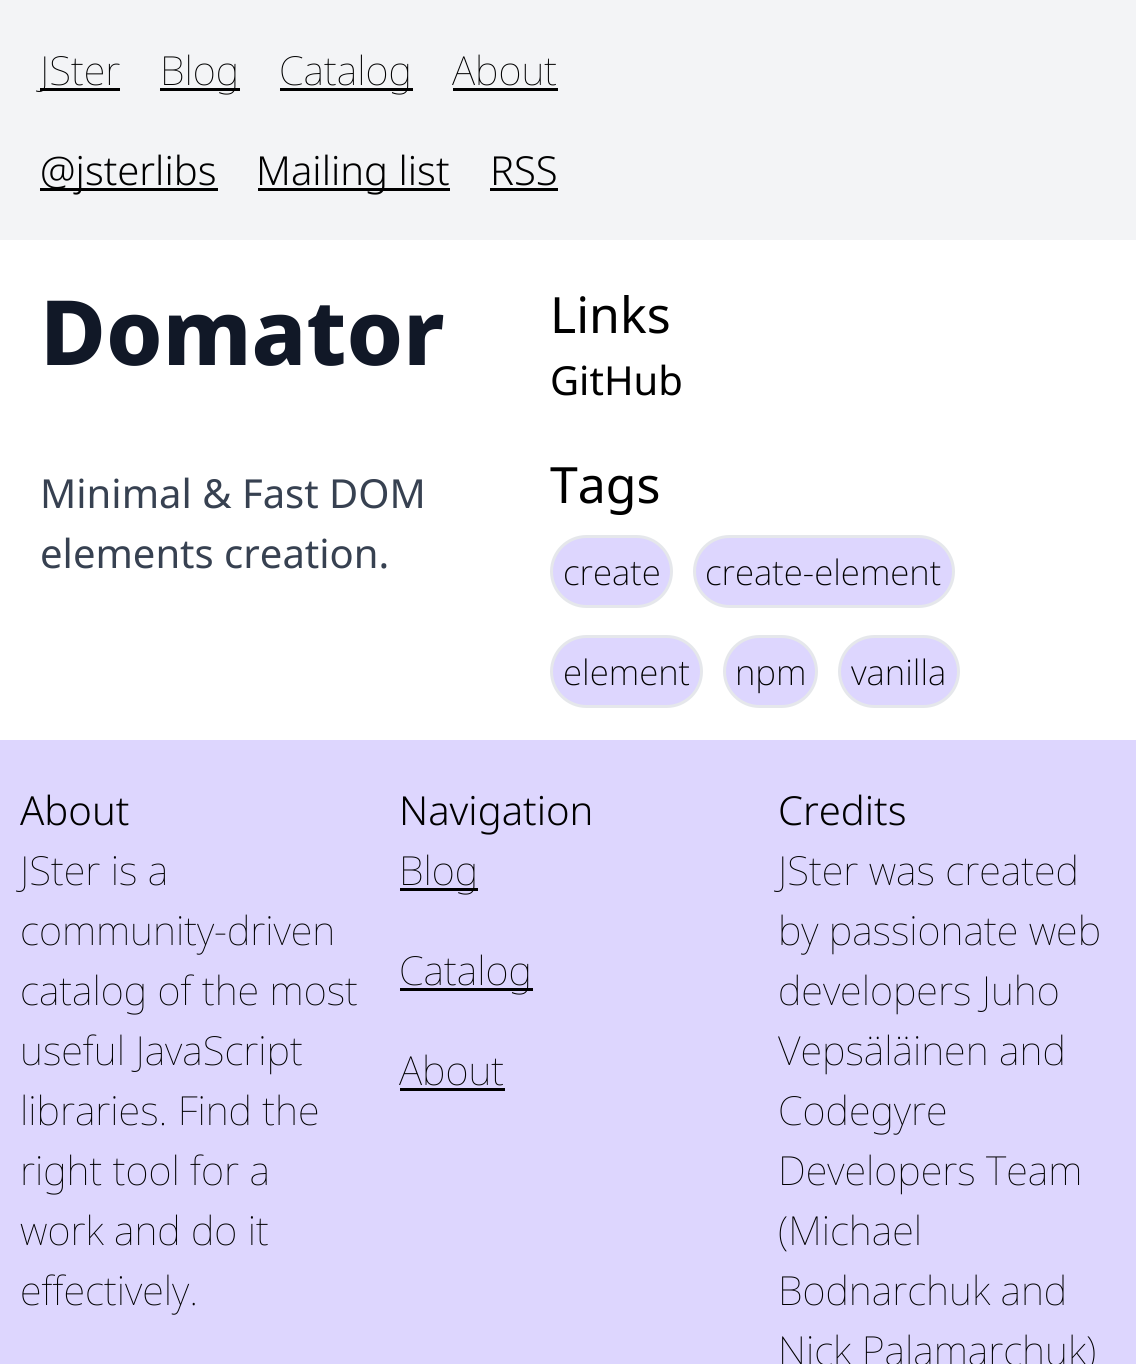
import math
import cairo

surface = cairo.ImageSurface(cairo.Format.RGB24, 1136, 1364)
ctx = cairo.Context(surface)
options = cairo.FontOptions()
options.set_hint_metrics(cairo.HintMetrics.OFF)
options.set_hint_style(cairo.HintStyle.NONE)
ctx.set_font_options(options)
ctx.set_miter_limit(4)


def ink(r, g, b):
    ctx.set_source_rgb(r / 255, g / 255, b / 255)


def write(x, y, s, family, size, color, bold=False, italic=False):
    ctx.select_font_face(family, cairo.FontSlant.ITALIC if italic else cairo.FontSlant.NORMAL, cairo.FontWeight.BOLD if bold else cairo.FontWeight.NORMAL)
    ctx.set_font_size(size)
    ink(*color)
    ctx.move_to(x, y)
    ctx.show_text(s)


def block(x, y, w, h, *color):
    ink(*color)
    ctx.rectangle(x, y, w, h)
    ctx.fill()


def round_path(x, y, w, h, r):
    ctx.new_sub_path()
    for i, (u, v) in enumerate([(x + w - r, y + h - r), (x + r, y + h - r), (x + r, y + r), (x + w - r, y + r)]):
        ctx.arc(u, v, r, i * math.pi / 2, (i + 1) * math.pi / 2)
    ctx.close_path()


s1 = dict(family="Noto Sans Thin", size=40, color=(0, 0, 0))
s2 = dict(family="Noto Sans Light", size=40, color=(0, 0, 0))
s3 = dict(family="Noto Sans ExtraBold", size=90, color=(17, 24, 39))
s4 = dict(family="Noto Sans", size=40, color=(55, 65, 81))
s5 = dict(family="Noto Sans", size=50, color=(0, 0, 0))
s6 = dict(family="Noto Sans", size=40, color=(0, 0, 0))
s7 = dict(family="Noto Sans ExtraLight", size=35, color=(0, 0, 0))

ink(255, 255, 255)
ctx.paint()
block(0, 0, 1136, 240, 243, 244, 246)
block(40, 88, 80, 3, 0, 0, 0)
write(40, 85, "JSter", **s1)
block(160, 88, 80, 3, 0, 0, 0)
write(160, 85, "Blog", **s1)
block(280, 88, 133, 3, 0, 0, 0)
write(279, 85, "Catalog", **s1)
write(452, 85, "About", **s1)
block(453, 88, 105, 3, 0, 0, 0)
block(40, 188, 178, 3, 0, 0, 0)
write(40, 185, "@jsterlibs", **s2)
block(258, 188, 192, 3, 0, 0, 0)
write(256, 185, "Mailing list", **s2)
write(490, 185, "RSS", **s2)
block(490, 188, 68, 3, 0, 0, 0)
write(40, 365, "Domator", **s3)
write(40, 508, "Minimal & Fast DOM", **s4)
write(40, 568, "elements creation.", **s4)
write(550, 333, "Links", **s5)
write(550, 395, "GitHub", **s6)
write(550, 503, "Tags", **s5)
ink(221, 214, 254)
round_path(551.5, 536.5, 120, 70, 35)
ctx.fill_preserve()
ink(229, 231, 235)
ctx.set_line_width(3)
ctx.stroke()
write(563, 585, "create", **s7)
ink(221, 214, 254)
round_path(694.5, 536.5, 259, 70, 35)
ctx.fill_preserve()
ink(229, 231, 235)
ctx.stroke()
write(705, 585, "create-element", **s7)
ink(221, 214, 254)
round_path(551.5, 636.5, 150, 70, 35)
ctx.fill_preserve()
ink(229, 231, 235)
ctx.stroke()
write(563, 685, "element", **s7)
ink(221, 214, 254)
round_path(724.5, 636.5, 92, 70, 35)
ctx.fill_preserve()
ink(229, 231, 235)
ctx.stroke()
write(735, 685, "npm", **s7)
ink(221, 214, 254)
round_path(839.5, 636.5, 119, 70, 35)
ctx.fill_preserve()
ink(229, 231, 235)
ctx.stroke()
write(851, 685, "vanilla", **s7)
block(0, 740, 1136, 624, 221, 214, 254)
write(20, 825, "About", **s2)
write(20, 885, "JSter is a", **s1)
write(20, 945, "community-driven", **s1)
write(20, 1005, "catalog of the most", **s1)
write(20, 1065, "useful JavaScript", **s1)
write(20, 1125, "libraries. Find the", **s1)
write(20, 1185, "right tool for a", **s1)
write(20, 1245, "work and do it", **s1)
write(20, 1305, "effectively.", **s1)
write(399, 825, "Navigation", **s2)
block(400, 888, 78, 3, 0, 0, 0)
write(399, 885, "Blog", **s1)
block(400, 988, 133, 3, 0, 0, 0)
write(399, 985, "Catalog", **s1)
write(399, 1085, "About", **s1)
block(400, 1088, 105, 3, 0, 0, 0)
write(778, 825, "Credits", **s2)
write(778, 885, "JSter was created", **s1)
write(778, 945, "by passionate web", **s1)
write(778, 1005, "developers Juho", **s1)
write(778, 1065, "Vepsäläinen and", **s1)
write(778, 1125, "Codegyre", **s1)
write(778, 1185, "Developers Team", **s1)
write(778, 1245, "(Michael", **s1)
write(778, 1305, "Bodnarchuk and", **s1)
write(778, 1365, "Nick Palamarchuk)", **s1)
surface.write_to_png("screenshot.png")
